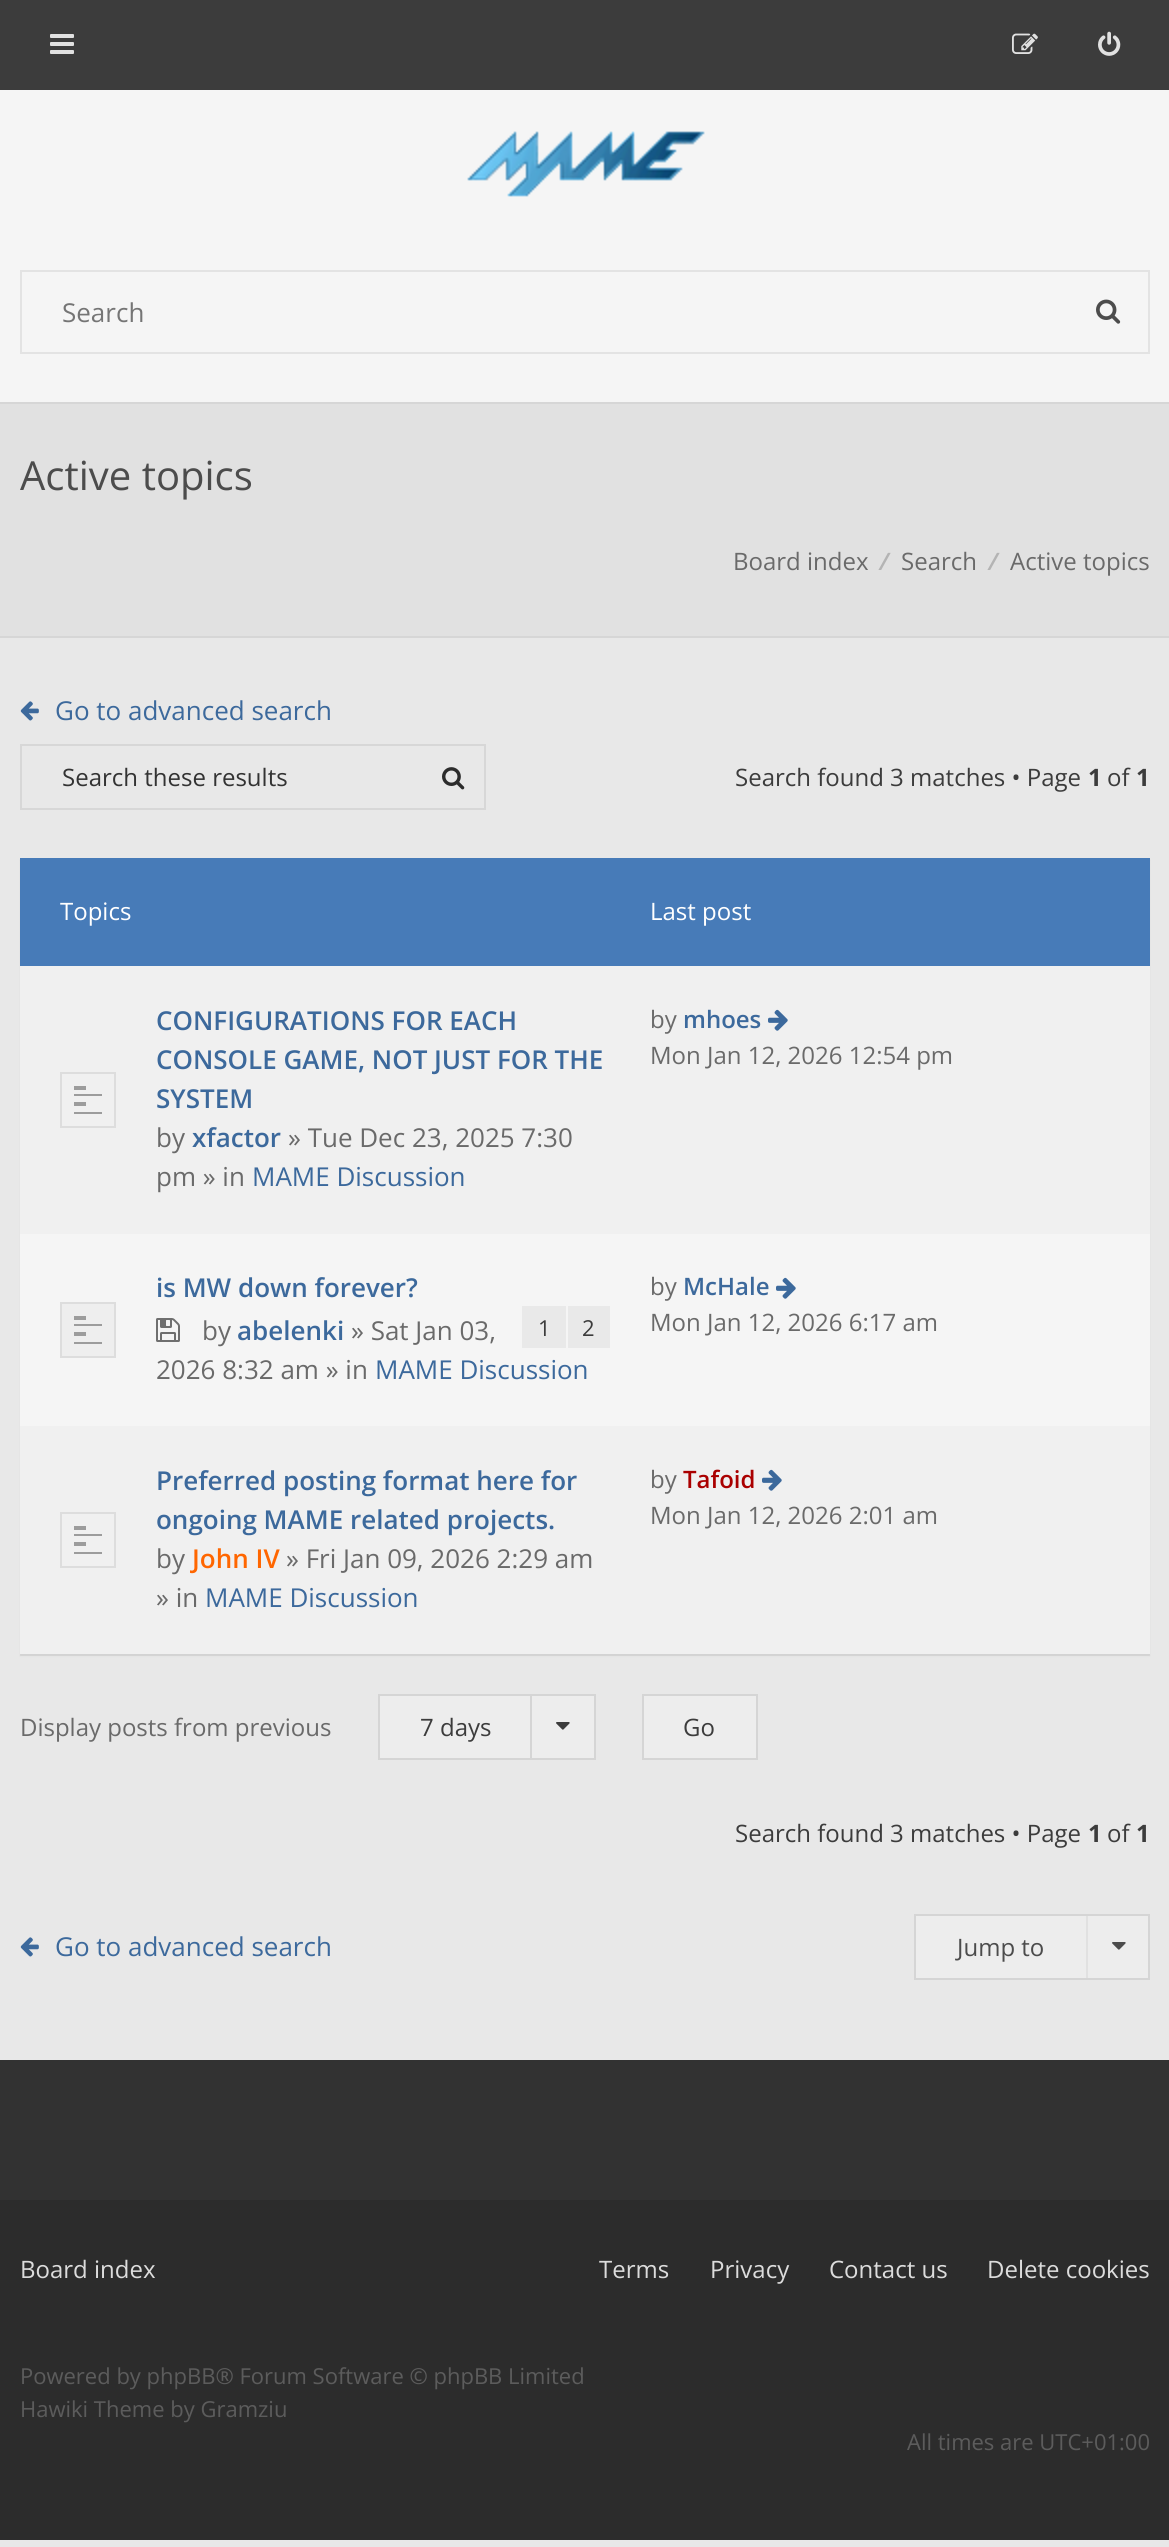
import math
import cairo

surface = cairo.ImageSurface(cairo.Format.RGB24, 1169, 2547)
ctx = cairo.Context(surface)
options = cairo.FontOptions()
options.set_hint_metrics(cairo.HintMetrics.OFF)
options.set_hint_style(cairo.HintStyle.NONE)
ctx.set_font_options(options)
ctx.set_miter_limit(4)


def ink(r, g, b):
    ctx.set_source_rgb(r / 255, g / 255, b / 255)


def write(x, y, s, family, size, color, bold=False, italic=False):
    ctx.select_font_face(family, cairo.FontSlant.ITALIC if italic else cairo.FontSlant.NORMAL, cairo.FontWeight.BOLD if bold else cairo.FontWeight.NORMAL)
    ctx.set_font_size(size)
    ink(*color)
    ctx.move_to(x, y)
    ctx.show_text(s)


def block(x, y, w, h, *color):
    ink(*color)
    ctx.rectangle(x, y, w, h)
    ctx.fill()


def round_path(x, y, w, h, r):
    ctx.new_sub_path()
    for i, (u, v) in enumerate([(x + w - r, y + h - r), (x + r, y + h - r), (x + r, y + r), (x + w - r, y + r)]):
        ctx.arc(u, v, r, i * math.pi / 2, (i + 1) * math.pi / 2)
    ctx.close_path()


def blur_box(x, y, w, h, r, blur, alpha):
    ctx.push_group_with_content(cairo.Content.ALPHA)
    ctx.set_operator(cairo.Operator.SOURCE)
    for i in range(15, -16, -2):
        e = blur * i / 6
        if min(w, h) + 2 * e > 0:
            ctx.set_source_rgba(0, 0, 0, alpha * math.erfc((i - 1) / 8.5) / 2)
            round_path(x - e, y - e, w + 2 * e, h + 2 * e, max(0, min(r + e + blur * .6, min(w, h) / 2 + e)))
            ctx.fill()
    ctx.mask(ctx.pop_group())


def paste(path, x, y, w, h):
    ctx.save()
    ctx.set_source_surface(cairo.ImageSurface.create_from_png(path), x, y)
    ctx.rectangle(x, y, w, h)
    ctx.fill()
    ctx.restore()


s1 = dict(family="Open Sans", size=26, color=(117, 117, 117))
s2 = dict(family="Open Sans", size=40, color=(76, 76, 76))
s3 = dict(family="Open Sans", size=24, color=(106, 106, 106))
s4 = dict(family="Open Sans", size=24, color=(180, 180, 180), bold=True)
s5 = dict(family="Open Sans", size=26, color=(60, 105, 156))
s6 = dict(family="Open Sans", size=24, color=(51, 51, 51))
s7 = dict(family="Open Sans", size=24, color=(60, 60, 60))
s8 = dict(family="Open Sans", size=24, color=(60, 60, 60), bold=True)
s9 = dict(family="Open Sans", size=24, color=(255, 255, 255))
s10 = dict(family="Open Sans SemiBold", size=26, color=(60, 105, 156))
s11 = dict(family="Open Sans", size=26, color=(106, 106, 106))
s12 = dict(family="Open Sans SemiBold", size=24, color=(60, 105, 156))
s13 = dict(family="Open Sans", size=22, color=(60, 60, 60))
s14 = dict(family="Open Sans SemiBold", size=26, color=(255, 102, 0))
s15 = dict(family="Open Sans SemiBold", size=24, color=(170, 0, 0))
s16 = dict(family="Open Sans", size=24, color=(76, 76, 76))
s17 = dict(family="Open Sans", size=24, color=(220, 220, 220))
s18 = dict(family="Open Sans", size=22, color=(92, 92, 92))

ink(232, 232, 232)
ctx.paint()
block(0, 0, 1169, 90, 60, 60, 60)
paste("pic1.png", 50, 34, 24, 20)
paste("pic2.png", 1012, 33, 26, 21)
paste("pic3.png", 1098, 31, 23, 25)
block(0, 90, 1169, 312, 245, 245, 245)
paste("pic4.png", 467, 131, 238, 66)
ctx.rectangle(21, 271, 1128, 82)
ink(227, 227, 227)
ctx.stroke()
write(62, 322, "Search", **s1)
paste("pic5.png", 1096, 299, 25, 25)
block(0, 404, 1169, 232, 225, 225, 225)
block(0, 402, 1169, 2, 214, 214, 214)
block(0, 636, 1169, 2, 214, 214, 214)
write(20, 490, "Active topics", **s2)
write(733, 570, "Board index", **s3)
write(883, 570, "⁄", **s4)
write(901, 570, "Search", **s3)
write(992, 570, "⁄", **s4)
write(1010, 570, "Active topics", **s3)
paste("pic6.png", 20, 701, 19, 20)
write(55, 720, "Go to advanced search", **s5)
ctx.rectangle(21, 745, 464, 64)
ink(215, 215, 215)
ctx.stroke()
write(62, 786, "Search these results", **s6)
paste("pic7.png", 442, 767, 23, 23)
write(735, 786, "Search found 3 matches • Page", **s7)
write(1088, 786, "1", **s8)
write(1107, 786, "of", **s7)
write(1136, 786, "1", **s8)
block(20, 1654, 1130, 2, 220, 220, 220)
ink(0, 0, 0)
blur_box(20, 860, 1130, 796, 0, 1, 0.05)
block(20, 858, 1130, 108, 71, 123, 184)
write(60, 920, "Topics", **s9)
write(650, 920, "Last post", **s9)
block(20, 966, 1130, 268, 240, 240, 240)
ctx.rectangle(61, 1073, 54, 54)
ink(221, 221, 221)
ctx.stroke()
block(74, 1086, 12, 4, 156, 156, 156)
block(74, 1094, 28, 2, 156, 156, 156)
block(74, 1112, 28, 2, 156, 156, 156)
block(74, 1102, 12, 4, 156, 156, 156)
write(156, 1030, "CONFIGURATIONS FOR EACH", **s10)
write(156, 1069, "CONSOLE GAME, NOT JUST FOR THE", **s10)
write(156, 1108, "SYSTEM", **s10)
write(156, 1147, "by", **s11)
write(192, 1147, "xfactor", **s10)
write(288, 1147, "» Tue Dec 23, 2025 7:30", **s11)
write(156, 1186, "pm » in", **s11)
write(252, 1186, "MAME Discussion", **s5)
write(650, 1028, "by", **s3)
write(683, 1028, "mhoes", **s12)
paste("pic8.png", 768, 1009, 20, 22)
write(650, 1064, "Mon Jan 12, 2026 12:54 pm", **s3)
block(20, 1234, 1130, 192, 245, 245, 245)
ink(238, 238, 238)
ctx.rectangle(61, 1303, 54, 54)
ctx.fill_preserve()
ink(221, 221, 221)
ctx.stroke()
block(74, 1316, 12, 4, 156, 156, 156)
block(74, 1324, 28, 2, 156, 156, 156)
block(74, 1342, 28, 2, 156, 156, 156)
block(74, 1332, 12, 4, 156, 156, 156)
write(156, 1297, "is MW down forever?", **s10)
paste("pic9.png", 156, 1318, 24, 24)
write(202, 1340, "by", **s11)
write(237, 1340, "abelenki", **s10)
write(351, 1340, "» Sat Jan 03,", **s11)
block(522, 1306, 44, 42, 233, 233, 233)
write(538, 1336, "1", **s13)
block(568, 1306, 42, 42, 233, 233, 233)
write(582, 1336, "2", **s13)
write(156, 1379, "2026 8:32 am » in", **s11)
write(375, 1379, "MAME Discussion", **s5)
write(650, 1295, "by", **s3)
write(683, 1295, "McHale", **s12)
paste("pic10.png", 776, 1277, 20, 22)
write(650, 1331, "Mon Jan 12, 2026 6:17 am", **s3)
block(20, 1426, 1130, 228, 240, 240, 240)
ctx.rectangle(61, 1513, 54, 54)
ink(221, 221, 221)
ctx.stroke()
block(74, 1526, 12, 4, 156, 156, 156)
block(74, 1534, 28, 2, 156, 156, 156)
block(74, 1552, 28, 2, 156, 156, 156)
block(74, 1542, 12, 4, 156, 156, 156)
write(156, 1490, "Preferred posting format here for", **s10)
write(156, 1529, "ongoing MAME related projects.", **s10)
write(156, 1568, "by", **s11)
write(192, 1568, "John IV", **s14)
write(286, 1568, "» Fri Jan 09, 2026 2:29 am", **s11)
write(156, 1607, "» in", **s11)
write(205, 1607, "MAME Discussion", **s5)
write(650, 1488, "by", **s3)
write(683, 1488, "Tafoid", **s15)
paste("pic8.png", 762, 1469, 20, 22)
write(650, 1524, "Mon Jan 12, 2026 2:01 am", **s3)
write(20, 1736, "Display posts from previous", **s3)
ink(237, 237, 237)
ctx.rectangle(379, 1695, 216, 64)
ctx.fill_preserve()
ink(213, 213, 213)
ctx.stroke()
write(420, 1736, "7 days", **s7)
block(530, 1696, 2, 62, 213, 213, 213)
paste("pic11.png", 556, 1722, 14, 8)
ink(237, 237, 237)
ctx.rectangle(643, 1695, 114, 64)
ctx.fill_preserve()
ink(213, 213, 213)
ctx.stroke()
write(683, 1736, "Go", **s7)
write(735, 1842, "Search found 3 matches • Page", **s7)
write(1088, 1842, "1", **s8)
write(1107, 1842, "of", **s7)
write(1136, 1842, "1", **s8)
paste("pic6.png", 20, 1937, 19, 20)
write(55, 1956, "Go to advanced search", **s5)
ink(237, 237, 237)
ctx.rectangle(915, 1915, 234, 64)
ctx.fill_preserve()
ink(213, 213, 213)
ctx.stroke()
write(957, 1956, "Jump to", **s16)
block(1086, 1916, 2, 62, 225, 225, 225)
paste("pic12.png", 1112, 1942, 14, 8)
block(0, 2200, 1169, 340, 44, 44, 44)
block(0, 2060, 1169, 140, 50, 50, 50)
write(20, 2278, "Board index", **s17)
write(599, 2278, "Terms", **s17)
write(710, 2278, "Privacy", **s17)
write(829, 2278, "Contact us", **s17)
write(987, 2278, "Delete cookies", **s17)
write(20, 2384, "Powered by phpBB® Forum Software © phpBB Limited", **s18)
write(20, 2417, "Hawiki Theme by Gramziu", **s18)
write(907, 2450, "All times are UTC+01:00", **s18)
surface.write_to_png("screenshot.png")
